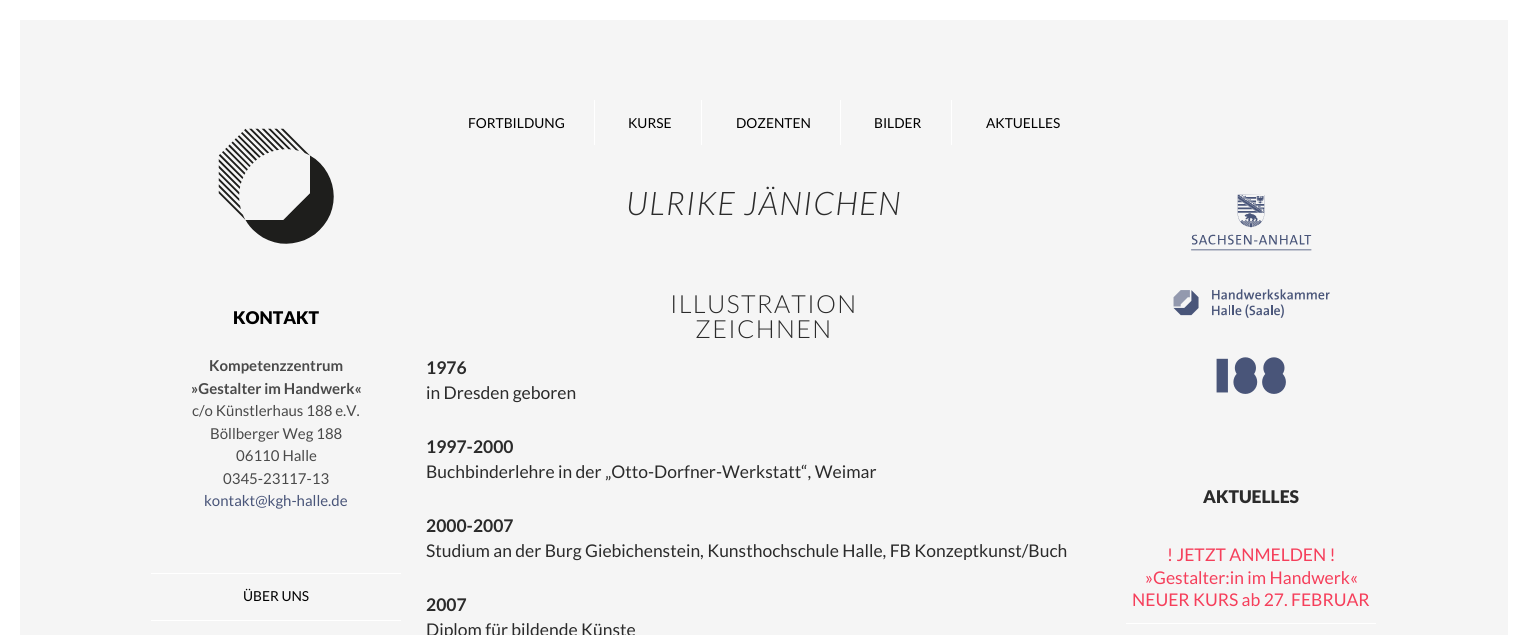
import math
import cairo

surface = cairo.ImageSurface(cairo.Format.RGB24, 1527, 635)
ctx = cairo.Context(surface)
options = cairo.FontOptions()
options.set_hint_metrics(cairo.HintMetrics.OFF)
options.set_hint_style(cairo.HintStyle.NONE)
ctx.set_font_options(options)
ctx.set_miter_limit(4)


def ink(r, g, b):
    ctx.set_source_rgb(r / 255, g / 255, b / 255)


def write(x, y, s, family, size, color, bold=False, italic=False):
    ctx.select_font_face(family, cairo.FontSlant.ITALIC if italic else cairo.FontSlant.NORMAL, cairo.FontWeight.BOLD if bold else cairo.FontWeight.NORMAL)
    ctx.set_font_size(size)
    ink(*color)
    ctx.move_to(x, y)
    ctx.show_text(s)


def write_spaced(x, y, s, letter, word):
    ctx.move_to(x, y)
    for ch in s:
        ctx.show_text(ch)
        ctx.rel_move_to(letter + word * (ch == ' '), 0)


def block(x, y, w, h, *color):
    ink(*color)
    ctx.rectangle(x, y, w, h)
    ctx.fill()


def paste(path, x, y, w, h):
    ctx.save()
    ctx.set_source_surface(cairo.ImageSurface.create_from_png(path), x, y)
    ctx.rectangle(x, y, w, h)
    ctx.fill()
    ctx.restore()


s1 = dict(family="Lato", size=13.75, color=(0, 0, 0))
s2 = dict(family="Lato Black", size=17.5, color=(0, 0, 0))
s3 = dict(family="Lato", size=15, color=(74, 74, 74), bold=True)
s4 = dict(family="Lato", size=15, color=(74, 74, 74))
s5 = dict(family="Lato", size=15, color=(73, 85, 121))
s6 = dict(family="Lato", size=17.5, color=(43, 43, 43), bold=True)
s7 = dict(family="Lato", size=17.5, color=(43, 43, 43))
s8 = dict(family="Lato Black", size=17.5, color=(43, 43, 43))
s9 = dict(family="Lato", size=17.5, color=(245, 63, 91))

ink(245, 245, 245)
ctx.paint()
ctx.rectangle(10, 10, 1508, 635)
ink(255, 255, 255)
ctx.set_line_width(20)
ctx.stroke()
block(594, 100, 1, 45, 255, 255, 255)
write(468, 128, "FORTBILDUNG", **s1)
block(701, 100, 1, 45, 255, 255, 255)
write(628, 128, "KURSE", **s1)
block(840, 100, 1, 45, 255, 255, 255)
write(736, 128, "DOZENTEN", **s1)
block(951, 100, 1, 45, 255, 255, 255)
write(874, 128, "BILDER", **s1)
write(986, 128, "AKTUELLES", **s1)
paste("pic1.png", 218, 128, 116, 116)
write(233, 324, "KONTAKT", **s2)
write(209, 371, "Kompetenzzentrum", **s3)
write(191, 394, "»Gestalter im Handwerk«", **s3)
write(192, 416, "c/o Künstlerhaus 188 e.V.", **s4)
write(210, 439, "Böllberger Weg 188", **s4)
write(236, 461, "06110 Halle", **s4)
write(223, 484, "0345-23117-13", **s4)
write(204, 506, "kontakt@kgh-halle.de", **s5)
block(151, 573, 250, 1, 255, 255, 255)
write(243, 601, "ÜBER UNS", **s1)
block(151, 620, 250, 1, 255, 255, 255)
ctx.select_font_face("Lato Light", cairo.FontSlant.ITALIC)
ctx.set_font_size(32.5)
ink(43, 43, 43)
write_spaced(626, 215, "ULRIKE JÄNICHEN", 1.3, 0)
ctx.select_font_face("Lato Light")
ctx.set_font_size(25)
write_spaced(670, 313, "ILLUSTRATION", 1.3, 0)
write_spaced(695, 338, "ZEICHNEN", 1.3, 0)
write(426, 374, "1976", **s6)
write(426, 399, "in Dresden geboren", **s7)
write(426, 453, "1997-2000", **s6)
write(426, 478, "Buchbinderlehre in der „Otto-Dorfner-Werkstatt“, Weimar", **s7)
write(426, 532, "2000-2007", **s6)
write(426, 557, "Studium an der Burg Giebichenstein, Kunsthochschule Halle, FB Konzeptkunst/Buch", **s7)
write(426, 611, "2007", **s6)
write(426, 636, "Diplom für bildende Künste", **s7)
paste("pic2.png", 1191, 194, 121, 57)
paste("pic3.png", 1173, 289, 157, 29)
paste("pic4.png", 1216, 357, 70, 37)
write(1203, 503, "AKTUELLES", **s8)
write(1167, 561, "! JETZT ANMELDEN !", **s9)
write(1145, 584, "»Gestalter:in im Handwerk«", **s9)
write(1132, 606, "NEUER KURS ab 27. FEBRUAR", **s9)
block(1126, 623, 250, 1, 255, 255, 255)
surface.write_to_png("screenshot.png")
